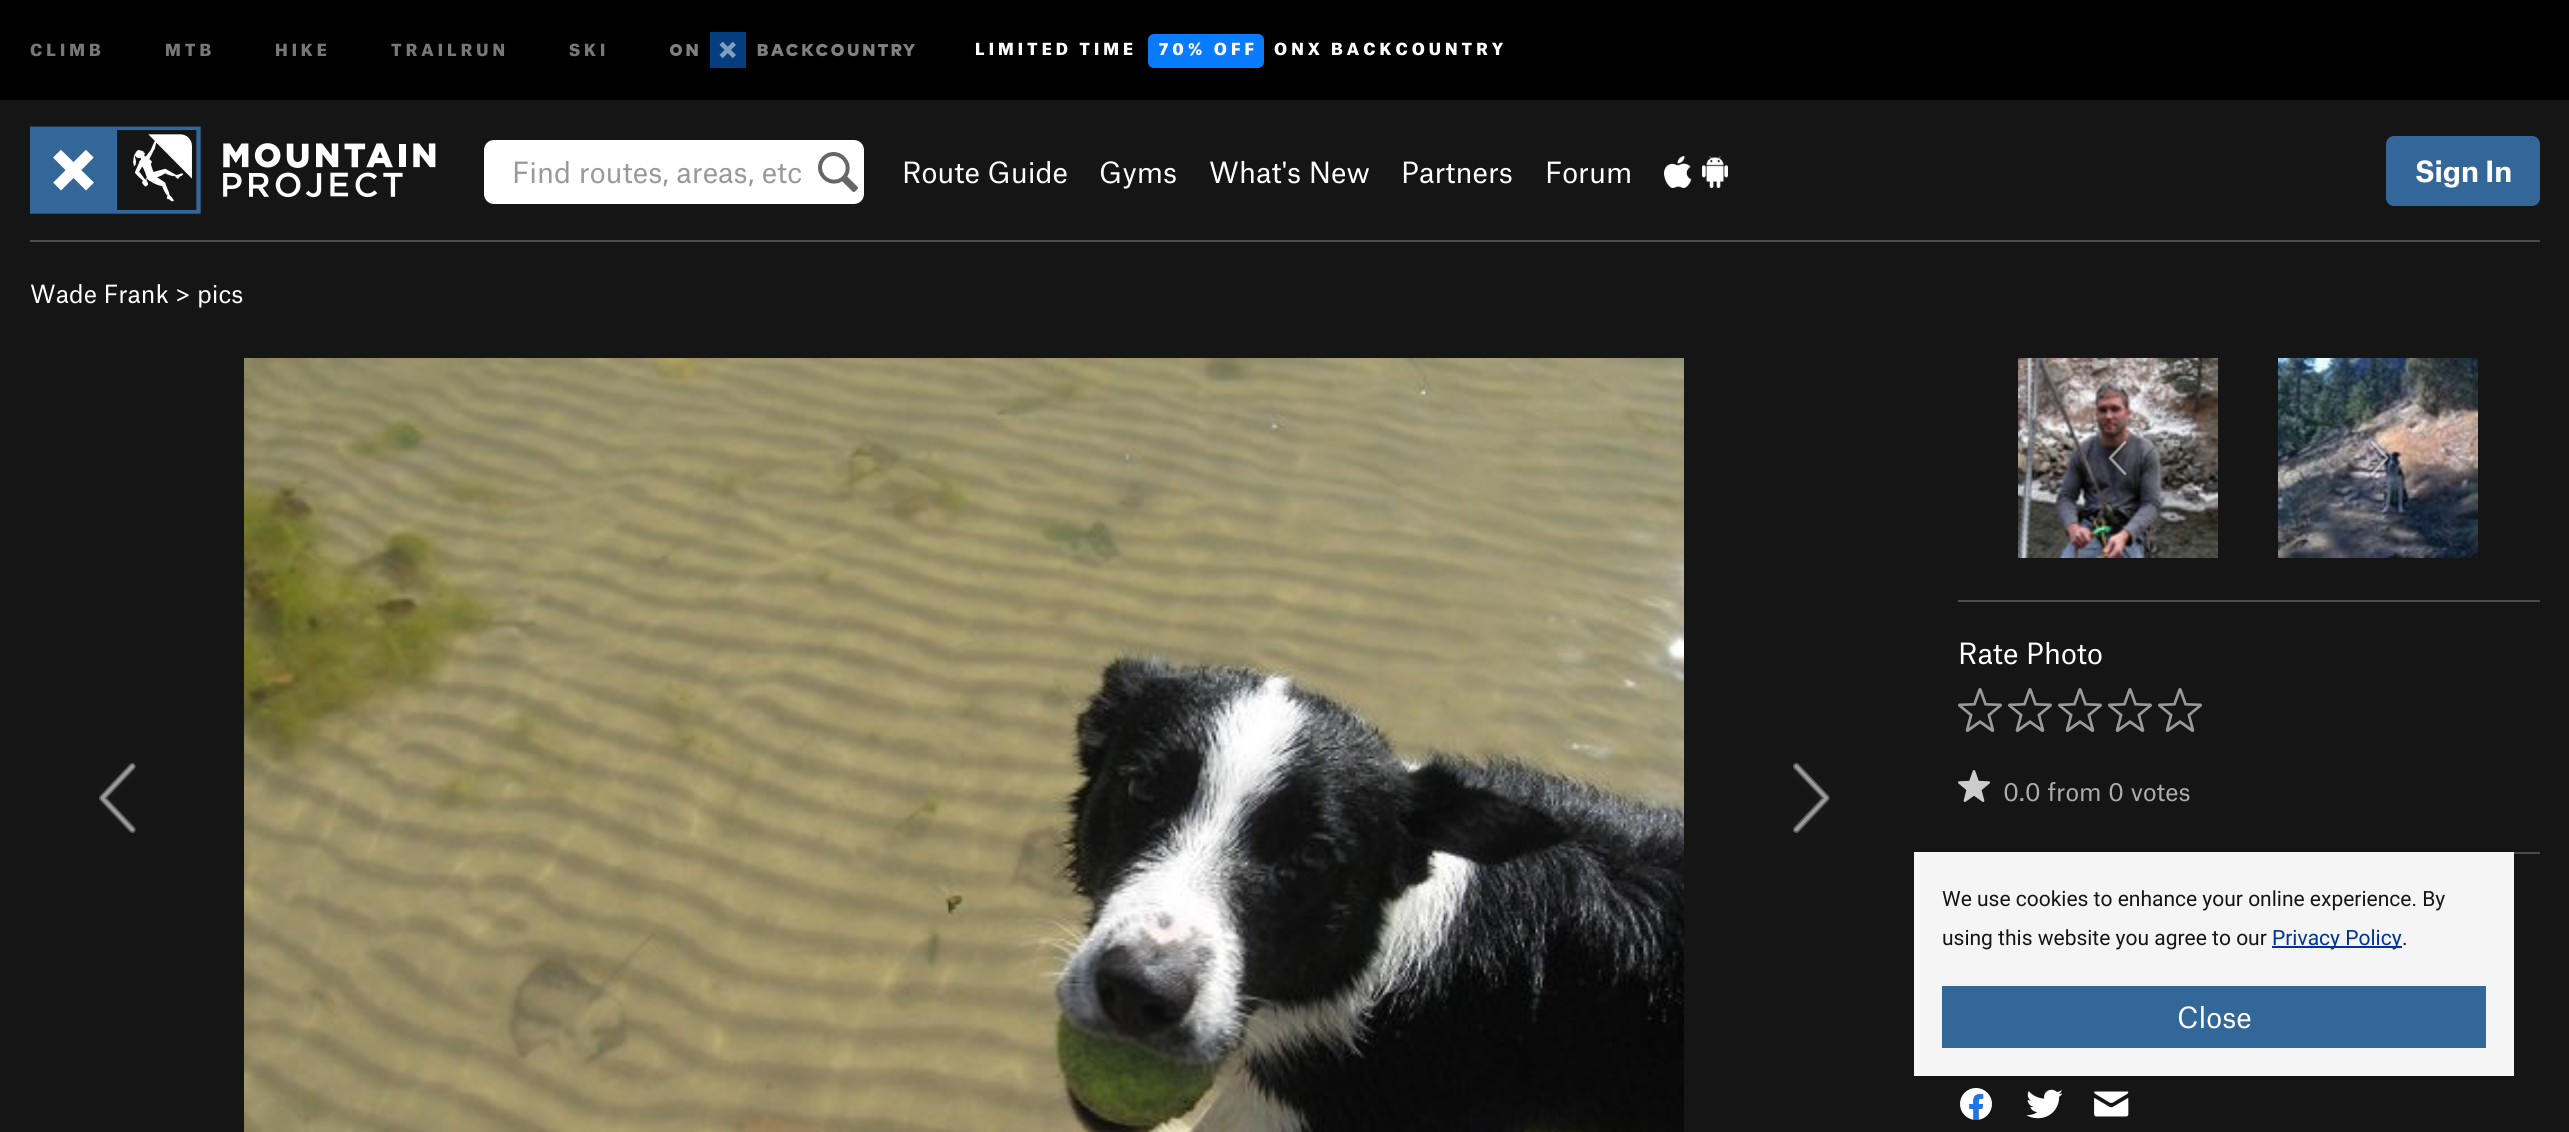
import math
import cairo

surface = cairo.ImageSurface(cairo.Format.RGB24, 2569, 1132)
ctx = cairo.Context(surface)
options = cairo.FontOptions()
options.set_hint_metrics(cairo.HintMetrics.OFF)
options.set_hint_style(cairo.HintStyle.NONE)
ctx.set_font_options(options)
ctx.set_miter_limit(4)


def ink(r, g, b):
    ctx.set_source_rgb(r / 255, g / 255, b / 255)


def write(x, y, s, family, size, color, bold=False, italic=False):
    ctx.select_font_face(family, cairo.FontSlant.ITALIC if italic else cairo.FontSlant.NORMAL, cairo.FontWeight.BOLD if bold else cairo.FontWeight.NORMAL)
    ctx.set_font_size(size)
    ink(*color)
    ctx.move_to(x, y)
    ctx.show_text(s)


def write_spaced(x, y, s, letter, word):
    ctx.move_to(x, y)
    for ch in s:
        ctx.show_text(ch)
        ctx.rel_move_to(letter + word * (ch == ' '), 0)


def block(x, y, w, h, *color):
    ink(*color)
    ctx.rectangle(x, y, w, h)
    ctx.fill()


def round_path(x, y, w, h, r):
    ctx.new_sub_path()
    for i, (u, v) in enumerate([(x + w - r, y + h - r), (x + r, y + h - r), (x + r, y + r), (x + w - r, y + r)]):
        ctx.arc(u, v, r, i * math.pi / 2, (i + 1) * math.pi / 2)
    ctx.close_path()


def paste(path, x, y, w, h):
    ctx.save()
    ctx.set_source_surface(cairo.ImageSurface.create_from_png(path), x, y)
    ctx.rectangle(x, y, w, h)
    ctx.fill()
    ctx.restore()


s1 = dict(family="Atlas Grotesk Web", size=28, color=(153, 153, 153))
s2 = dict(family="Atlas Grotesk Web", size=28, color=(255, 255, 255))
s3 = dict(family="Atlas Grotesk Web", size=28, color=(255, 255, 255), bold=True)
s4 = dict(family="Atlas Grotesk Web", size=24, color=(255, 255, 255))
s5 = dict(family="Atlas Grotesk Web", size=24, color=(172, 172, 172))
s6 = dict(family="Roboto", size=21, color=(21, 21, 21))
s7 = dict(family="Roboto", size=21, color=(0, 51, 153))

ink(21, 21, 21)
ctx.paint()
block(0, 0, 2569, 100, 0, 0, 0)
ctx.select_font_face("Atlas Grotesk Web Black")
ctx.set_font_size(16)
ink(119, 119, 119)
write_spaced(30, 56, "CLIMB", 4, 0)
write_spaced(165, 56, "MTB", 4, 0)
write_spaced(275, 56, "HIKE", 4, 0)
write_spaced(391, 56, "TRAILRUN", 4, 0)
write_spaced(569, 56, "SKI", 4, 0)
paste("pic1.png", 670, 32, 245, 36)
ink(255, 255, 255)
write_spaced(975, 55, "LIMITED TIME", 4, 0)
ink(8, 123, 255)
round_path(1148, 34, 116, 34, 6)
ctx.fill()
ink(255, 255, 255)
write_spaced(1159, 55, "70% OFF", 4, 0)
write_spaced(1274, 55, "ONX BACKCOUNTRY", 4, 0)
paste("pic2.png", 30, 126, 406, 88)
round_path(484, 140, 380, 64, 10)
ctx.fill()
paste("pic3.png", 818, 152, 40, 40)
write(512, 183, "Find routes, areas, etc", **s1)
write(902, 183, "Route Guide", **s2)
write(1099, 183, "Gyms", **s2)
write(1209, 183, "What's New", **s2)
write(1401, 183, "Partners", **s2)
write(1545, 183, "Forum", **s2)
paste("pic4.png", 1664, 156, 28, 32)
paste("pic5.png", 1702, 156, 26, 32)
ink(51, 103, 153)
round_path(2386, 136, 154, 70, 8)
ctx.fill()
write(2415, 182, "Sign In", **s3)
block(30, 240, 2510, 2, 78, 77, 73)
write(30, 303, "Wade Frank > pics", **s4)
paste("pic6.png", 99, 763, 37, 70)
paste("pic7.png", 244, 358, 1440, 774)
paste("pic8.png", 1793, 763, 37, 70)
paste("pic9.png", 2018, 358, 200, 200)
paste("pic10.png", 2108, 438, 20, 39)
paste("pic11.png", 2278, 358, 200, 200)
paste("pic12.png", 2368, 438, 23, 40)
block(1958, 600, 582, 2, 78, 77, 73)
write(1958, 664, "Rate Photo", **s2)
paste("pic13.png", 1958, 688, 44, 44)
paste("pic14.png", 2008, 688, 44, 44)
paste("pic13.png", 2058, 688, 44, 44)
paste("pic13.png", 2108, 688, 44, 44)
paste("pic13.png", 2158, 688, 44, 44)
paste("pic15.png", 1958, 770, 32, 32)
write(2003, 801, "0.0 from 0 votes", **s5)
block(2514, 852, 26, 2, 78, 77, 73)
paste("pic16.png", 1960, 1088, 32, 32)
paste("pic17.png", 2026, 1089, 36, 30)
paste("pic18.png", 2094, 1091, 35, 26)
block(1914, 852, 600, 224, 245, 245, 245)
write(1942, 906, "We use cookies to enhance your online experience. By", **s6)
write(1942, 945, "using this website you agree to our", **s6)
block(2272, 946, 130, 2, 0, 51, 153)
write(2272, 945, "Privacy Policy", **s7)
write(2402, 945, ".", **s6)
block(1942, 986, 544, 62, 51, 103, 153)
write(2177, 1028, "Close", **s2)
surface.write_to_png("screenshot.png")
